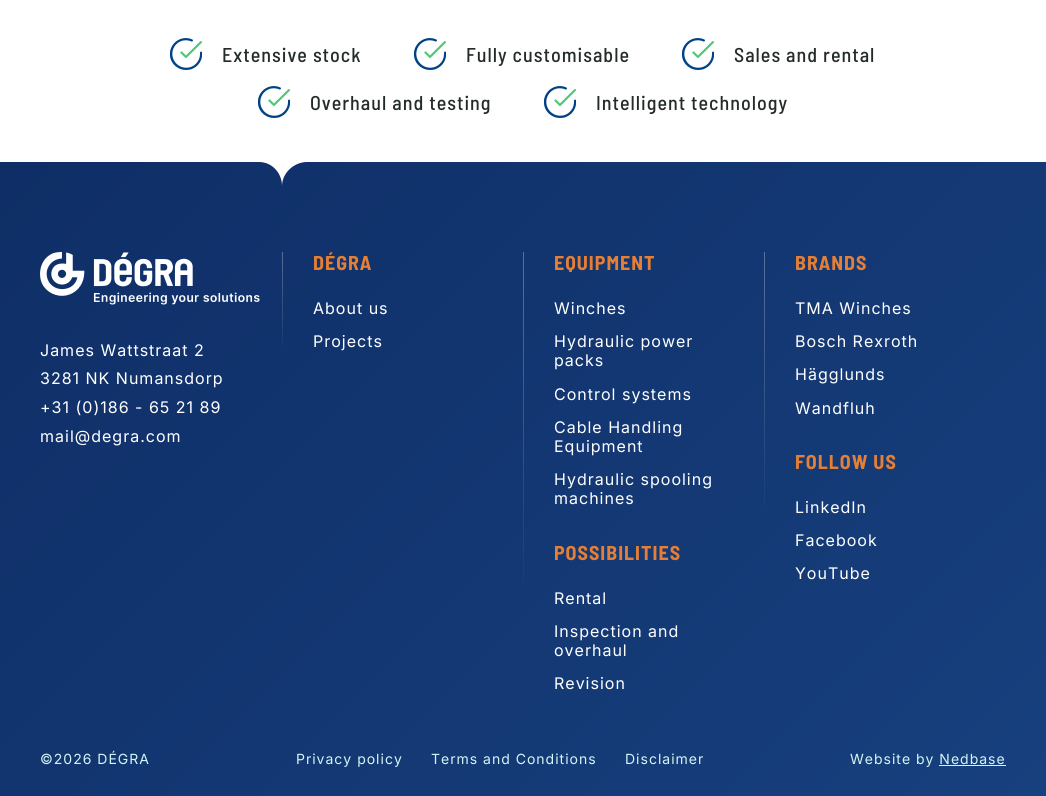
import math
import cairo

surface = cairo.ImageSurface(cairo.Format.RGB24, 1046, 796)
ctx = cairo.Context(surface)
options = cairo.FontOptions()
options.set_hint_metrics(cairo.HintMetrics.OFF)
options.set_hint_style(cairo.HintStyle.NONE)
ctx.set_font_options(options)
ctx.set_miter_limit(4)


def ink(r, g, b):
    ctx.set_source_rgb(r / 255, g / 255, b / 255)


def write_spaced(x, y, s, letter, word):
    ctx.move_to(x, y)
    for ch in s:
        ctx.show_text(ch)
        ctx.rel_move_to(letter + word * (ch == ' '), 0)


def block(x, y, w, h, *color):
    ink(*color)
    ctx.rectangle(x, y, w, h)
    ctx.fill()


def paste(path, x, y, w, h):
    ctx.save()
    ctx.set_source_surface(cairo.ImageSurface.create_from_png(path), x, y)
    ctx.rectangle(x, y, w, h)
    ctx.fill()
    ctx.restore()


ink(255, 255, 255)
ctx.paint()
gradient = cairo.LinearGradient(985, 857, 61, -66)
gradient.add_color_stop_rgba(0, 0.09, 0.251, 0.494, 1)
gradient.add_color_stop_rgba(1, 0.055, 0.173, 0.392, 1)
ctx.set_source(gradient)
ctx.rectangle(0, 162, 1046, 634)
ctx.fill()
paste("pic1.png", 170, 38, 32, 32)
ctx.select_font_face("Barlow Semi Condensed Medium")
ctx.set_font_size(20)
ink(35, 43, 43)
write_spaced(222, 62, "Extensive stock", 1, 0)
paste("pic1.png", 414, 38, 32, 32)
write_spaced(466, 62, "Fully customisable", 1, 0)
paste("pic1.png", 682, 38, 32, 32)
write_spaced(734, 62, "Sales and rental", 1, 0)
paste("pic1.png", 258, 86, 32, 32)
write_spaced(310, 110, "Overhaul and testing", 1, 0)
paste("pic1.png", 544, 86, 32, 32)
write_spaced(596, 110, "Intelligent technology", 1, 0)
paste("pic2.png", 40, 252, 220, 53)
ctx.select_font_face("Inter")
ctx.set_font_size(16)
ink(255, 255, 255)
write_spaced(40, 356, "James Wattstraat 2", 1, 0)
write_spaced(40, 384, "3281 NK Numansdorp", 1, 0)
write_spaced(40, 413, "+31 (0)186 - 65 21 89", 1, 0)
write_spaced(40, 442, "mail@degra.com", 1, 0)
paste("pic3.png", 282, 252, 1, 93)
ctx.new_path()
ctx.move_to(282, 186)
ctx.curve_to(282, 173, 294, 162, 307, 162)
ctx.line_to(259, 162)
ctx.curve_to(272, 162, 282, 173, 282, 186)
ctx.close_path()
ctx.fill()
ctx.select_font_face("Barlow Semi Condensed", cairo.FontSlant.NORMAL, cairo.FontWeight.BOLD)
ctx.set_font_size(20)
ink(230, 127, 54)
write_spaced(313, 270, "DÉGRA", 1, 0)
ctx.select_font_face("Inter")
ctx.set_font_size(16)
ink(255, 255, 255)
write_spaced(313, 314, "About us", 1, 0)
write_spaced(313, 347, "Projects", 1, 0)
paste("pic4.png", 523, 252, 1, 331)
ctx.select_font_face("Barlow Semi Condensed", cairo.FontSlant.NORMAL, cairo.FontWeight.BOLD)
ctx.set_font_size(20)
ink(230, 127, 54)
write_spaced(554, 270, "EQUIPMENT", 1, 0)
ctx.select_font_face("Inter")
ctx.set_font_size(16)
ink(255, 255, 255)
write_spaced(554, 314, "Winches", 1, 0)
write_spaced(554, 347, "Hydraulic power", 1, 0)
write_spaced(554, 366, "packs", 1, 0)
write_spaced(554, 400, "Control systems", 1, 0)
write_spaced(554, 433, "Cable Handling", 1, 0)
write_spaced(554, 452, "Equipment", 1, 0)
write_spaced(554, 485, "Hydraulic spooling", 1, 0)
write_spaced(554, 504, "machines", 1, 0)
ctx.select_font_face("Barlow Semi Condensed", cairo.FontSlant.NORMAL, cairo.FontWeight.BOLD)
ctx.set_font_size(20)
ink(230, 127, 54)
write_spaced(554, 560, "POSSIBILITIES", 1, 0)
ctx.select_font_face("Inter")
ctx.set_font_size(16)
ink(255, 255, 255)
write_spaced(554, 604, "Rental", 1, 0)
write_spaced(554, 637, "Inspection and", 1, 0)
write_spaced(554, 656, "overhaul", 1, 0)
write_spaced(554, 689, "Revision", 1, 0)
paste("pic5.png", 764, 252, 1, 254)
ctx.select_font_face("Barlow Semi Condensed", cairo.FontSlant.NORMAL, cairo.FontWeight.BOLD)
ctx.set_font_size(20)
ink(230, 127, 54)
write_spaced(795, 270, "BRANDS", 1, 0)
ctx.select_font_face("Inter")
ctx.set_font_size(16)
ink(255, 255, 255)
write_spaced(795, 314, "TMA Winches", 1, 0)
write_spaced(795, 347, "Bosch Rexroth", 1, 0)
write_spaced(795, 380, "Hägglunds", 1, 0)
write_spaced(795, 414, "Wandfluh", 1, 0)
ctx.select_font_face("Barlow Semi Condensed", cairo.FontSlant.NORMAL, cairo.FontWeight.BOLD)
ctx.set_font_size(20)
ink(230, 127, 54)
write_spaced(795, 469, "FOLLOW US", 1, 0)
ctx.select_font_face("Inter")
ctx.set_font_size(16)
ink(255, 255, 255)
write_spaced(795, 513, "LinkedIn", 1, 0)
write_spaced(795, 546, "Facebook", 1, 0)
write_spaced(795, 579, "YouTube", 1, 0)
ctx.set_font_size(14)
ink(212, 245, 245)
write_spaced(40, 764, "©2026 DÉGRA", 1, 0)
write_spaced(296, 764, "Privacy policy", 1, 0)
write_spaced(431, 764, "Terms and Conditions", 1, 0)
write_spaced(625, 764, "Disclaimer", 1, 0)
write_spaced(850, 764, "Website by Nedbase", 1, 0)
block(939, 765, 67, 1, 212, 245, 245)
surface.write_to_png("screenshot.png")
